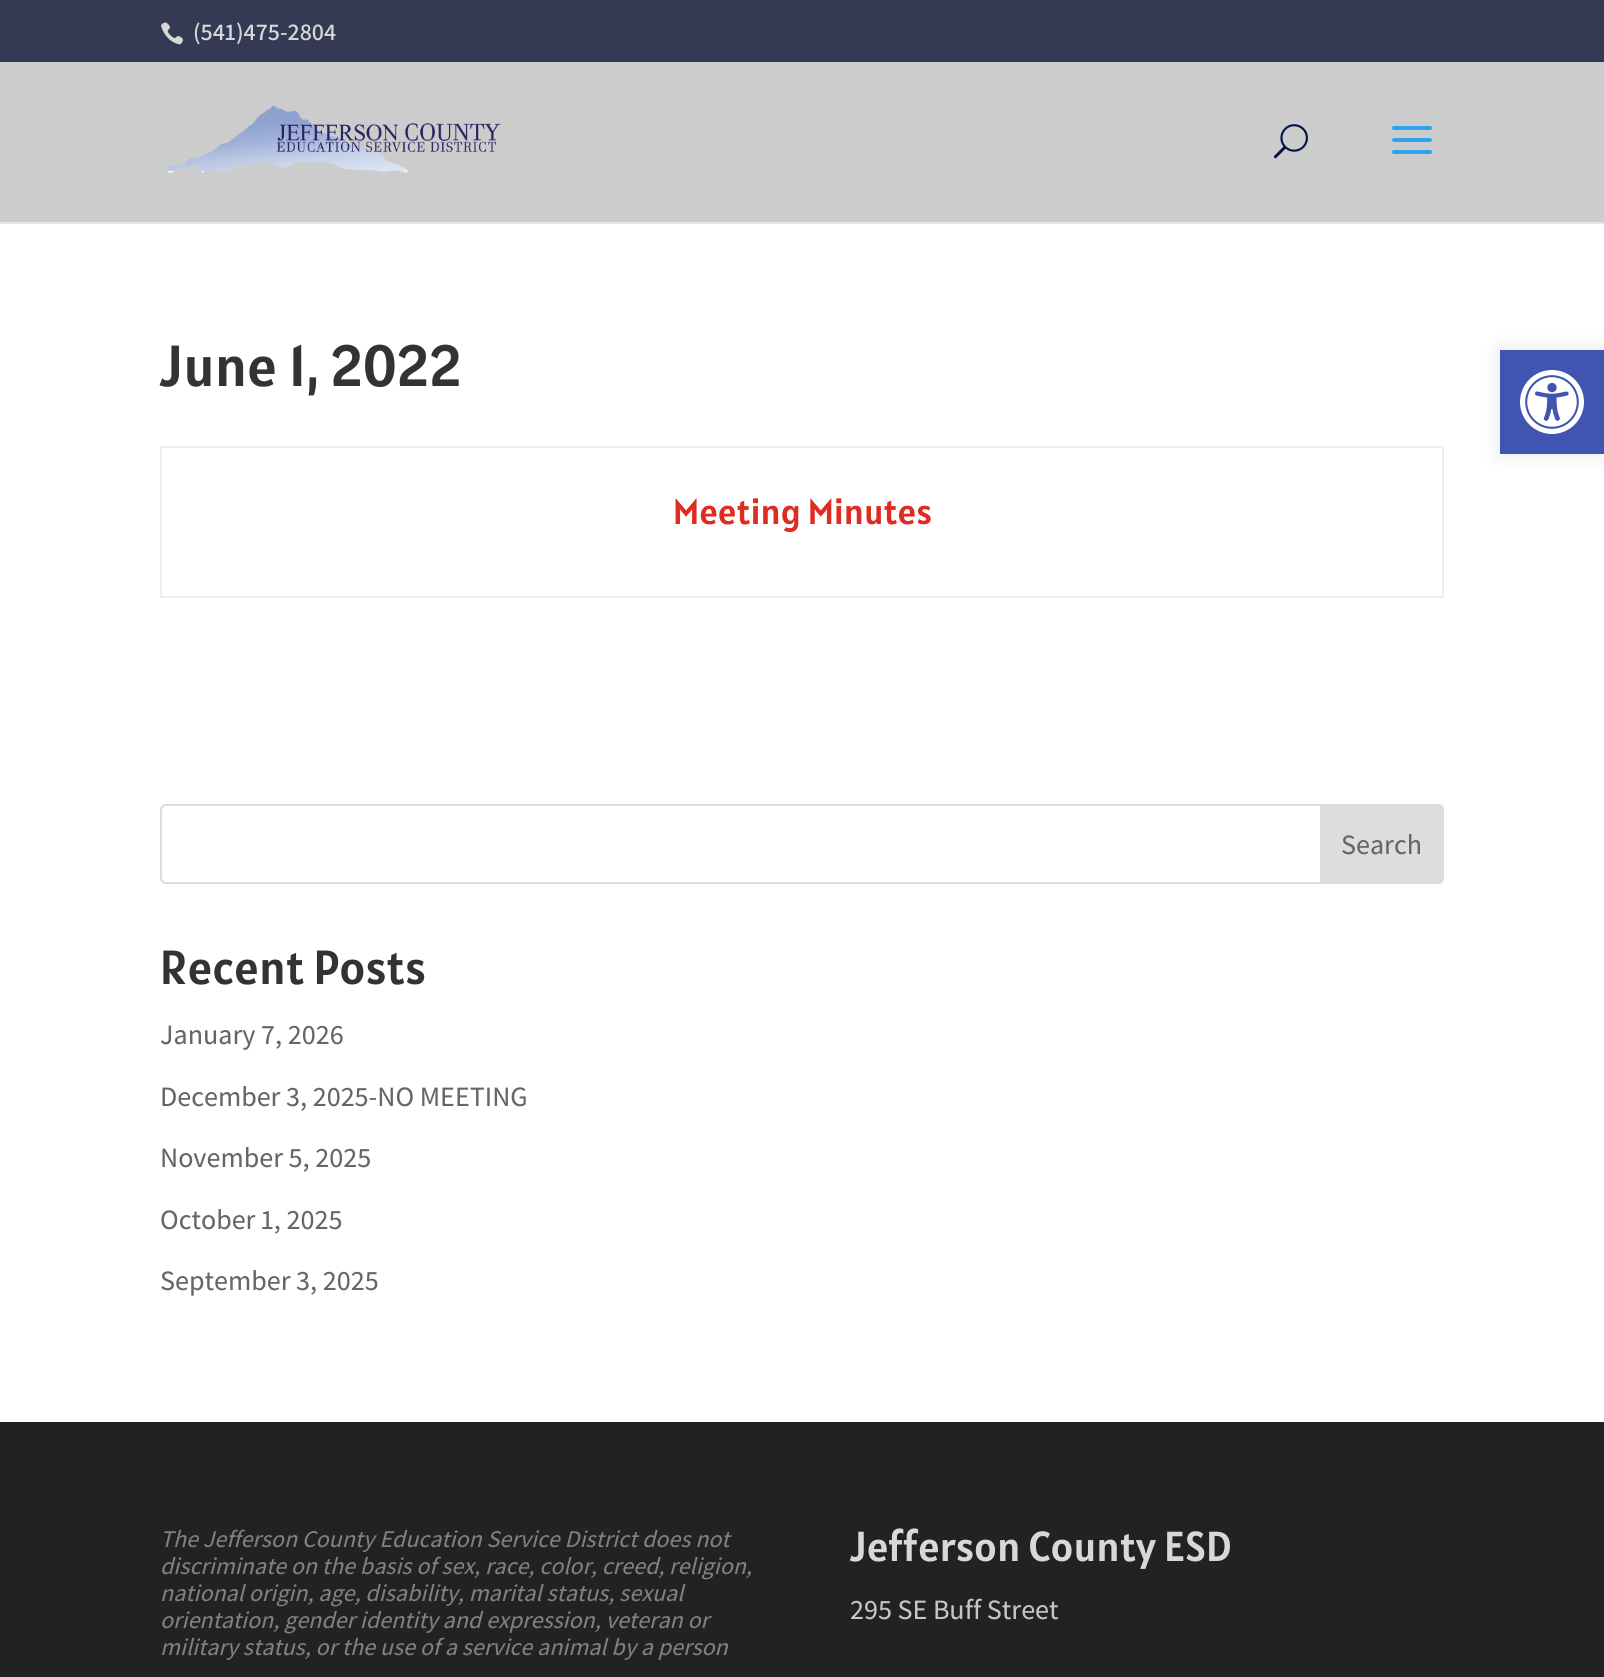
import math
import cairo

surface = cairo.ImageSurface(cairo.Format.RGB24, 1604, 1677)
ctx = cairo.Context(surface)
options = cairo.FontOptions()
options.set_hint_metrics(cairo.HintMetrics.OFF)
options.set_hint_style(cairo.HintStyle.NONE)
ctx.set_font_options(options)
ctx.set_miter_limit(4)


def ink(r, g, b):
    ctx.set_source_rgb(r / 255, g / 255, b / 255)


def write(x, y, s, family, size, color, bold=False, italic=False):
    ctx.select_font_face(family, cairo.FontSlant.ITALIC if italic else cairo.FontSlant.NORMAL, cairo.FontWeight.BOLD if bold else cairo.FontWeight.NORMAL)
    ctx.set_font_size(size)
    ink(*color)
    ctx.move_to(x, y)
    ctx.show_text(s)


def block(x, y, w, h, *color):
    ink(*color)
    ctx.rectangle(x, y, w, h)
    ctx.fill()


def round_path(x, y, w, h, r):
    ctx.new_sub_path()
    for i, (u, v) in enumerate([(x + w - r, y + h - r), (x + r, y + h - r), (x + r, y + r), (x + w - r, y + r)]):
        ctx.arc(u, v, r, i * math.pi / 2, (i + 1) * math.pi / 2)
    ctx.close_path()


def blur_box(x, y, w, h, r, blur, alpha):
    ctx.push_group_with_content(cairo.Content.ALPHA)
    ctx.set_operator(cairo.Operator.SOURCE)
    for i in range(15, -16, -2):
        e = blur * i / 6
        if min(w, h) + 2 * e > 0:
            ctx.set_source_rgba(0, 0, 0, alpha * math.erfc((i - 1) / 8.5) / 2)
            round_path(x - e, y - e, w + 2 * e, h + 2 * e, max(0, min(r + e + blur * .6, min(w, h) / 2 + e)))
            ctx.fill()
    ctx.mask(ctx.pop_group())


def paste(path, x, y, w, h):
    ctx.save()
    ctx.set_source_surface(cairo.ImageSurface.create_from_png(path), x, y)
    ctx.rectangle(x, y, w, h)
    ctx.fill()
    ctx.restore()


s1 = dict(family="Assistant SemiBold", size=24, color=(216, 216, 216))
s2 = dict(family="Alatsi", size=58, color=(51, 51, 51))
s3 = dict(family="Alatsi", size=36, color=(224, 43, 32))
s4 = dict(family="Assistant Medium", size=28, color=(102, 102, 102))
s5 = dict(family="Alatsi", size=48, color=(51, 51, 51))
s6 = dict(family="Assistant Medium", size=24, color=(128, 128, 128), italic=True)
s7 = dict(family="Alatsi", size=42, color=(216, 216, 216))
s8 = dict(family="Assistant Medium", size=28, color=(203, 195, 203))

ink(52, 58, 84)
ctx.paint()
paste("pic1.png", 161, 22, 22, 23)
write(193, 40, "(541)475-2804", **s1)
block(0, 222, 1604, 2, 230, 230, 230)
block(0, 62, 1604, 160, 204, 204, 204)
paste("pic2.png", 168, 105, 333, 68)
paste("pic3.png", 1273, 124, 35, 35)
paste("pic4.png", 1392, 126, 40, 28)
block(0, 224, 1604, 1198, 255, 255, 255)
write(160, 386, "June 1, 2022", **s2)
block(160, 446, 1284, 2, 238, 238, 238)
block(1442, 446, 2, 152, 238, 238, 238)
block(160, 596, 1284, 2, 238, 238, 238)
block(160, 446, 2, 152, 238, 238, 238)
write(673, 524, "Meeting Minutes", **s3)
round_path(161, 805, 1282, 78, 5)
ink(221, 221, 221)
ctx.stroke()
ctx.new_path()
ctx.move_to(1321, 805)
ctx.line_to(1438, 805)
ctx.curve_to(1441, 805, 1443, 807, 1443, 810)
ctx.line_to(1443, 878)
ctx.curve_to(1443, 881, 1441, 883, 1438, 883)
ctx.line_to(1321, 883)
ctx.close_path()
ctx.fill_preserve()
ctx.stroke()
write(1341, 854, "Search", **s4)
write(160, 984, "Recent Posts", **s5)
write(160, 1044, "January 7, 2026", **s4)
write(160, 1106, "December 3, 2025-NO MEETING", **s4)
write(160, 1167, "November 5, 2025", **s4)
write(160, 1229, "October 1, 2025", **s4)
write(160, 1290, "September 3, 2025", **s4)
block(0, 1422, 1604, 255, 34, 34, 34)
write(160, 1547, "The Jefferson County Education Service District does not", **s6)
write(160, 1574, "discriminate on the basis of sex, race, color, creed, religion,", **s6)
write(160, 1601, "national origin, age, disability, marital status, sexual", **s6)
write(160, 1628, "orientation, gender identity and expression, veteran or", **s6)
write(160, 1655, "military status, or the use of a service animal by a person", **s6)
write(850, 1561, "Jefferson County ESD", **s7)
write(850, 1619, "295 SE Buff Street", **s8)
ink(0, 0, 0)
blur_box(1500, 350, 104, 104, 0, 10, 0.1)
block(1500, 350, 104, 104, 64, 84, 178)
paste("pic5.png", 1520, 370, 64, 64)
surface.write_to_png("screenshot.png")
